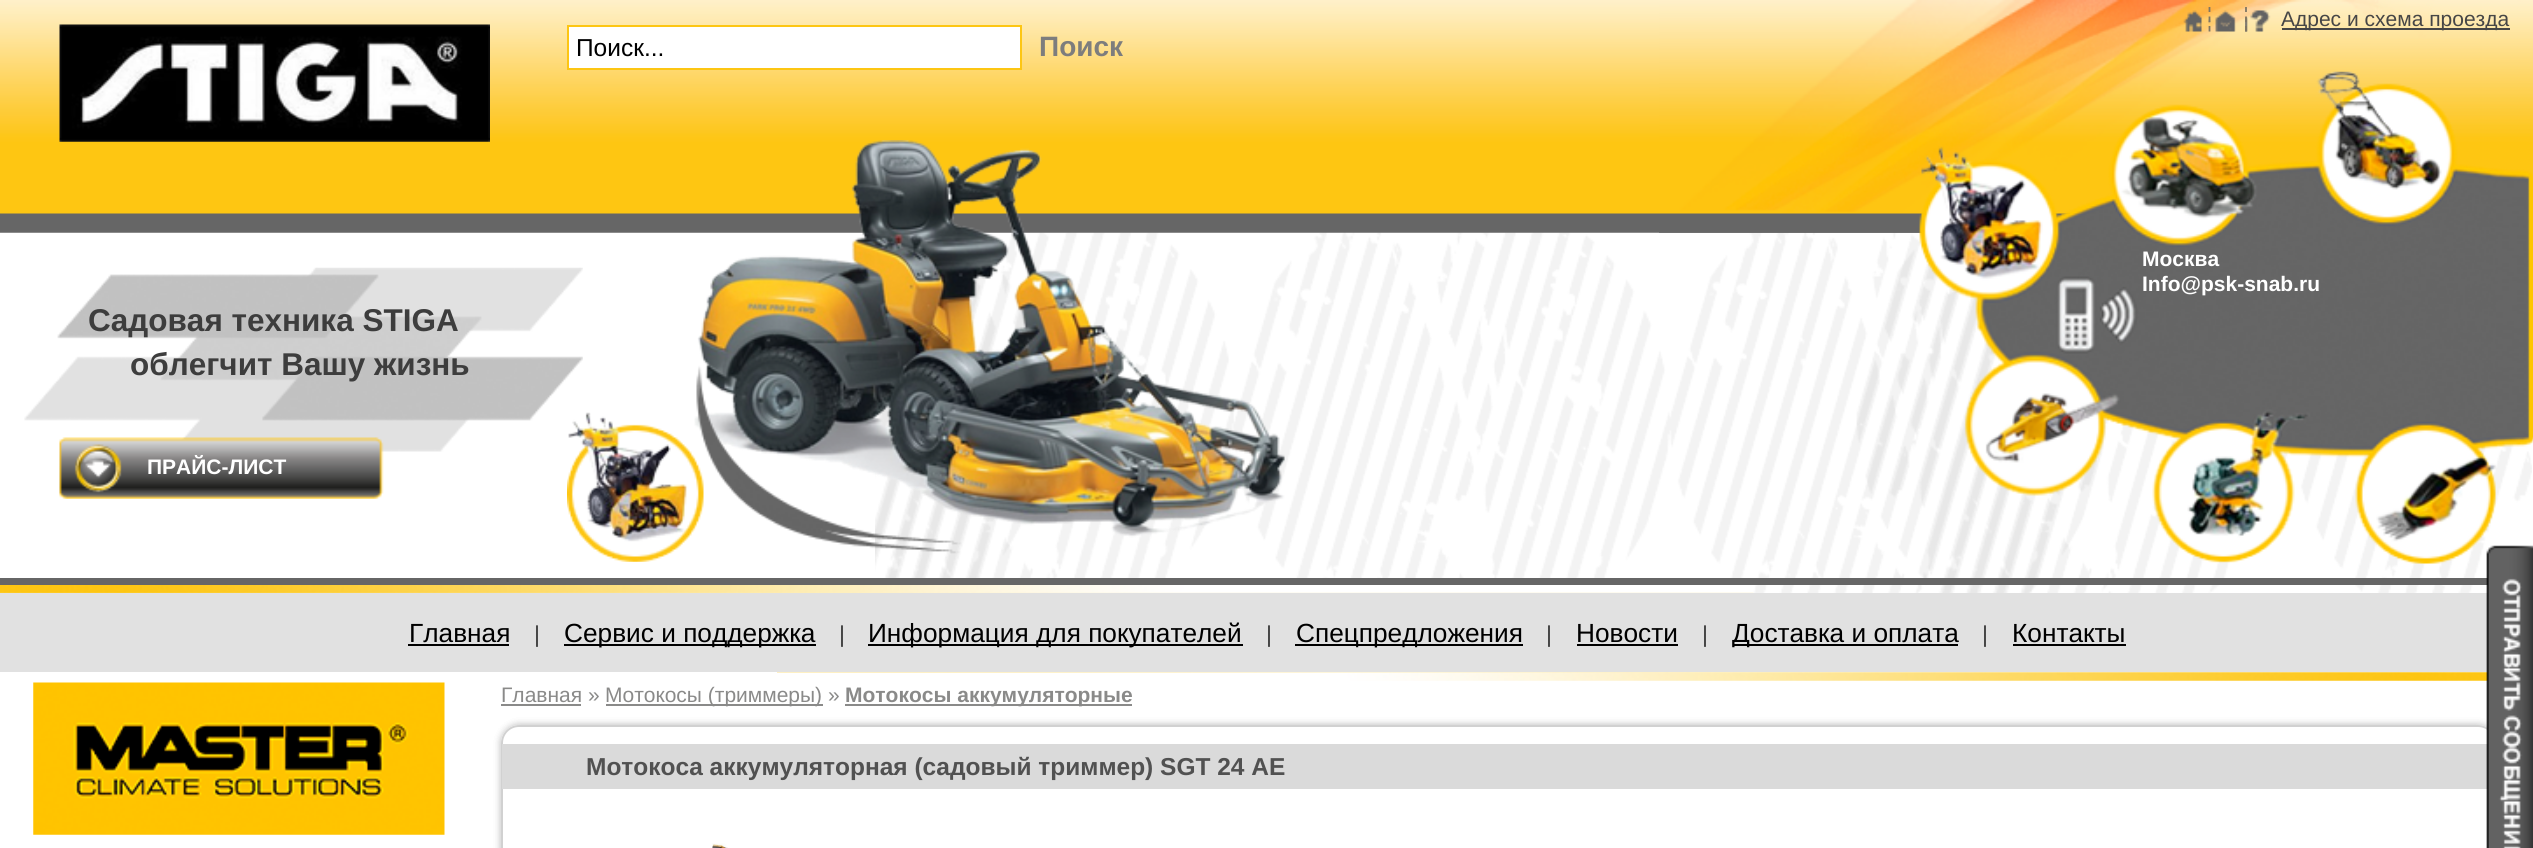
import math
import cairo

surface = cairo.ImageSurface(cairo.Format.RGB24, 2533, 848)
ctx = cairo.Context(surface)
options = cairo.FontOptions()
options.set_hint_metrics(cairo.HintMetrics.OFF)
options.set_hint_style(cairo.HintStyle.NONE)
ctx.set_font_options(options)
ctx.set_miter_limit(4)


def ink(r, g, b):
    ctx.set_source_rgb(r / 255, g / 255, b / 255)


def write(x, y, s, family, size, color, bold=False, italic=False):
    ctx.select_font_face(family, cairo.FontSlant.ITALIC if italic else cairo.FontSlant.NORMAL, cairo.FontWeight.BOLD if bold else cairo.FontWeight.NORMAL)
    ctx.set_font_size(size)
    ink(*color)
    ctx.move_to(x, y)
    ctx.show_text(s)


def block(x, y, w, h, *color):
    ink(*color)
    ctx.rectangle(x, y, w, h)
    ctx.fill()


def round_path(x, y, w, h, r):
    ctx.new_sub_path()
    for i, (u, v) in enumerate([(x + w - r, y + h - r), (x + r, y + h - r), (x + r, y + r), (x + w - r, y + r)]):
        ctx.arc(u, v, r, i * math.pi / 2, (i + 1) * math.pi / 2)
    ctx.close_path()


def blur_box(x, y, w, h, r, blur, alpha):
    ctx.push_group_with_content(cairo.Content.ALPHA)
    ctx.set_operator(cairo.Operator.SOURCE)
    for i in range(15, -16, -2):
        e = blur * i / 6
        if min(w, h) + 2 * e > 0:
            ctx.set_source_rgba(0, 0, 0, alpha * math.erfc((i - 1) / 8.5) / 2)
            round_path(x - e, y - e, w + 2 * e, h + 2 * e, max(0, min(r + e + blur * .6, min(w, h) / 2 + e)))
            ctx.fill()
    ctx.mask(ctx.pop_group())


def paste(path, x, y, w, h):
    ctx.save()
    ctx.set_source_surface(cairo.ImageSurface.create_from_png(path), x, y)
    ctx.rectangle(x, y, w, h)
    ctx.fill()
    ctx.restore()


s1 = dict(family="Liberation Sans", size=21, color=(70, 70, 70))
s2 = dict(family="Liberation Sans", size=24.5, color=(0, 0, 0))
s3 = dict(family="Liberation Sans", size=28, color=(125, 125, 125), bold=True)
s4 = dict(family="Liberation Sans", size=21, color=(255, 255, 255), bold=True)
s5 = dict(family="Liberation Sans", size=31.5, color=(61, 61, 61), bold=True)
s6 = dict(family="Liberation Sans", size=26.25, color=(0, 0, 0))
s7 = dict(family="Liberation Sans", size=23, color=(61, 61, 61))
s8 = dict(family="Liberation Sans", size=21, color=(138, 138, 137))
s9 = dict(family="Liberation Sans", size=21, color=(138, 138, 137), bold=True)
s10 = dict(family="Liberation Sans", size=24.5, color=(81, 81, 81), bold=True)

ink(255, 255, 255)
ctx.paint()
paste("pic1.png", 875, 232, 1657, 361)
paste("pic2.png", 0, 0, 1922, 233)
paste("pic3.png", 1659, 0, 874, 233)
paste("pic4.png", 567, 140, 718, 422)
paste("pic5.png", 2183, 10, 19, 22)
paste("pic6.png", 2208, 10, 28, 22)
ctx.new_path()
ctx.move_to(2209.5, 7)
ctx.line_to(2209.5, 12)
ctx.move_to(2209.5, 16.5)
ctx.line_to(2209.5, 22)
ctx.move_to(2209.5, 26)
ctx.line_to(2209.5, 31.5)
ink(127, 118, 99)
ctx.set_line_width(1.8)
ctx.stroke()
paste("pic7.png", 2245, 10, 26, 22)
ctx.new_path()
ctx.move_to(2246, 7)
ctx.line_to(2246, 12)
ctx.move_to(2246, 16.5)
ctx.line_to(2246, 22)
ctx.move_to(2246, 26)
ctx.line_to(2246, 31.5)
ctx.stroke()
block(2282, 28, 228, 2, 70, 70, 70)
write(2281, 26, "Адрес и схема проезда", **s1)
paste("pic8.png", 59, 24, 431, 118)
ink(255, 255, 255)
ctx.rectangle(568, 26, 453, 43)
ctx.fill_preserve()
ink(253, 198, 19)
ctx.set_line_width(2)
ctx.stroke()
write(576, 56, "Поиск...", **s2)
write(1039, 56, "Поиск", **s3)
paste("pic9.png", 1919, 71, 614, 493)
write(2142, 266, "Москва", **s4)
write(2142, 291, "Info@psk-snab.ru", **s4)
paste("pic10.png", 24, 267, 559, 185)
write(88, 331, "Садовая техника STIGA", **s5)
write(130, 375, "облегчит Вашу жизнь", **s5)
paste("pic11.png", 59, 437, 325, 62)
write(147, 474, "ПРАЙС-ЛИСТ", **s4)
paste("pic12.png", 0, 585, 1754, 8)
block(0, 578, 2488, 7, 102, 102, 102)
paste("pic13.png", 777, 672, 1711, 9)
block(0, 593, 2488, 79, 225, 225, 225)
write(409, 642, "Главная", **s6)
block(408, 644, 101, 2, 0, 0, 0)
write(534, 642, "|", **s7)
block(564, 644, 252, 2, 0, 0, 0)
write(564, 642, "Сервис и поддержка", **s6)
write(839, 642, "|", **s7)
block(868, 644, 375, 2, 0, 0, 0)
write(868, 642, "Информация для покупателей", **s6)
write(1266, 642, "|", **s7)
block(1295, 644, 228, 2, 0, 0, 0)
write(1296, 642, "Спецпредложения", **s6)
write(1546, 642, "|", **s7)
write(1576, 642, "Новости", **s6)
block(1577, 644, 101, 2, 0, 0, 0)
write(1702, 642, "|", **s7)
block(1733, 644, 225, 2, 0, 0, 0)
write(1732, 642, "Доставка и оплата", **s6)
write(1982, 642, "|", **s7)
write(2012, 642, "Контакты", **s6)
block(2013, 644, 113, 2, 0, 0, 0)
paste("pic14.png", 33, 682, 412, 153)
write(501, 702, "Главная »", **s8)
block(501, 704, 80, 2, 138, 138, 137)
block(606, 704, 217, 2, 138, 138, 137)
write(605, 702, "Мотокосы (триммеры) »", **s8)
block(845, 704, 287, 2, 138, 138, 137)
write(845, 702, "Мотокосы аккумуляторные", **s9)
ctx.save()
ctx.set_fill_rule(cairo.FillRule.EVEN_ODD)
ctx.new_path()
ctx.move_to(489, 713)
ctx.line_to(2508, 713)
ctx.line_to(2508, 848)
ctx.line_to(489, 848)
ctx.close_path()
ctx.move_to(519, 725)
ctx.line_to(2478, 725)
ctx.curve_to(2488, 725, 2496, 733, 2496, 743)
ctx.line_to(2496, 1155)
ctx.curve_to(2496, 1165, 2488, 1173, 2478, 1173)
ctx.line_to(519, 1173)
ctx.curve_to(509, 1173, 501, 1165, 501, 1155)
ctx.line_to(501, 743)
ctx.curve_to(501, 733, 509, 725, 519, 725)
ctx.close_path()
ctx.clip()
ink(209, 209, 209)
blur_box(501, 725, 1995, 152, 18, 3.5, 1)
blur_box(501, 725, 1995, 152, 18, 3.5, 1)
ctx.restore()
round_path(502, 726, 1993, 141, 17)
ink(209, 209, 209)
ctx.stroke()
block(502, 744, 1986, 45, 218, 218, 218)
write(586, 775, "Мотокоса аккумуляторная (садовый триммер) SGT 24 AE", **s10)
paste("pic15.png", 712, 843, 16, 5)
paste("pic16.png", 2486, 545, 47, 303)
surface.write_to_png("screenshot.png")
